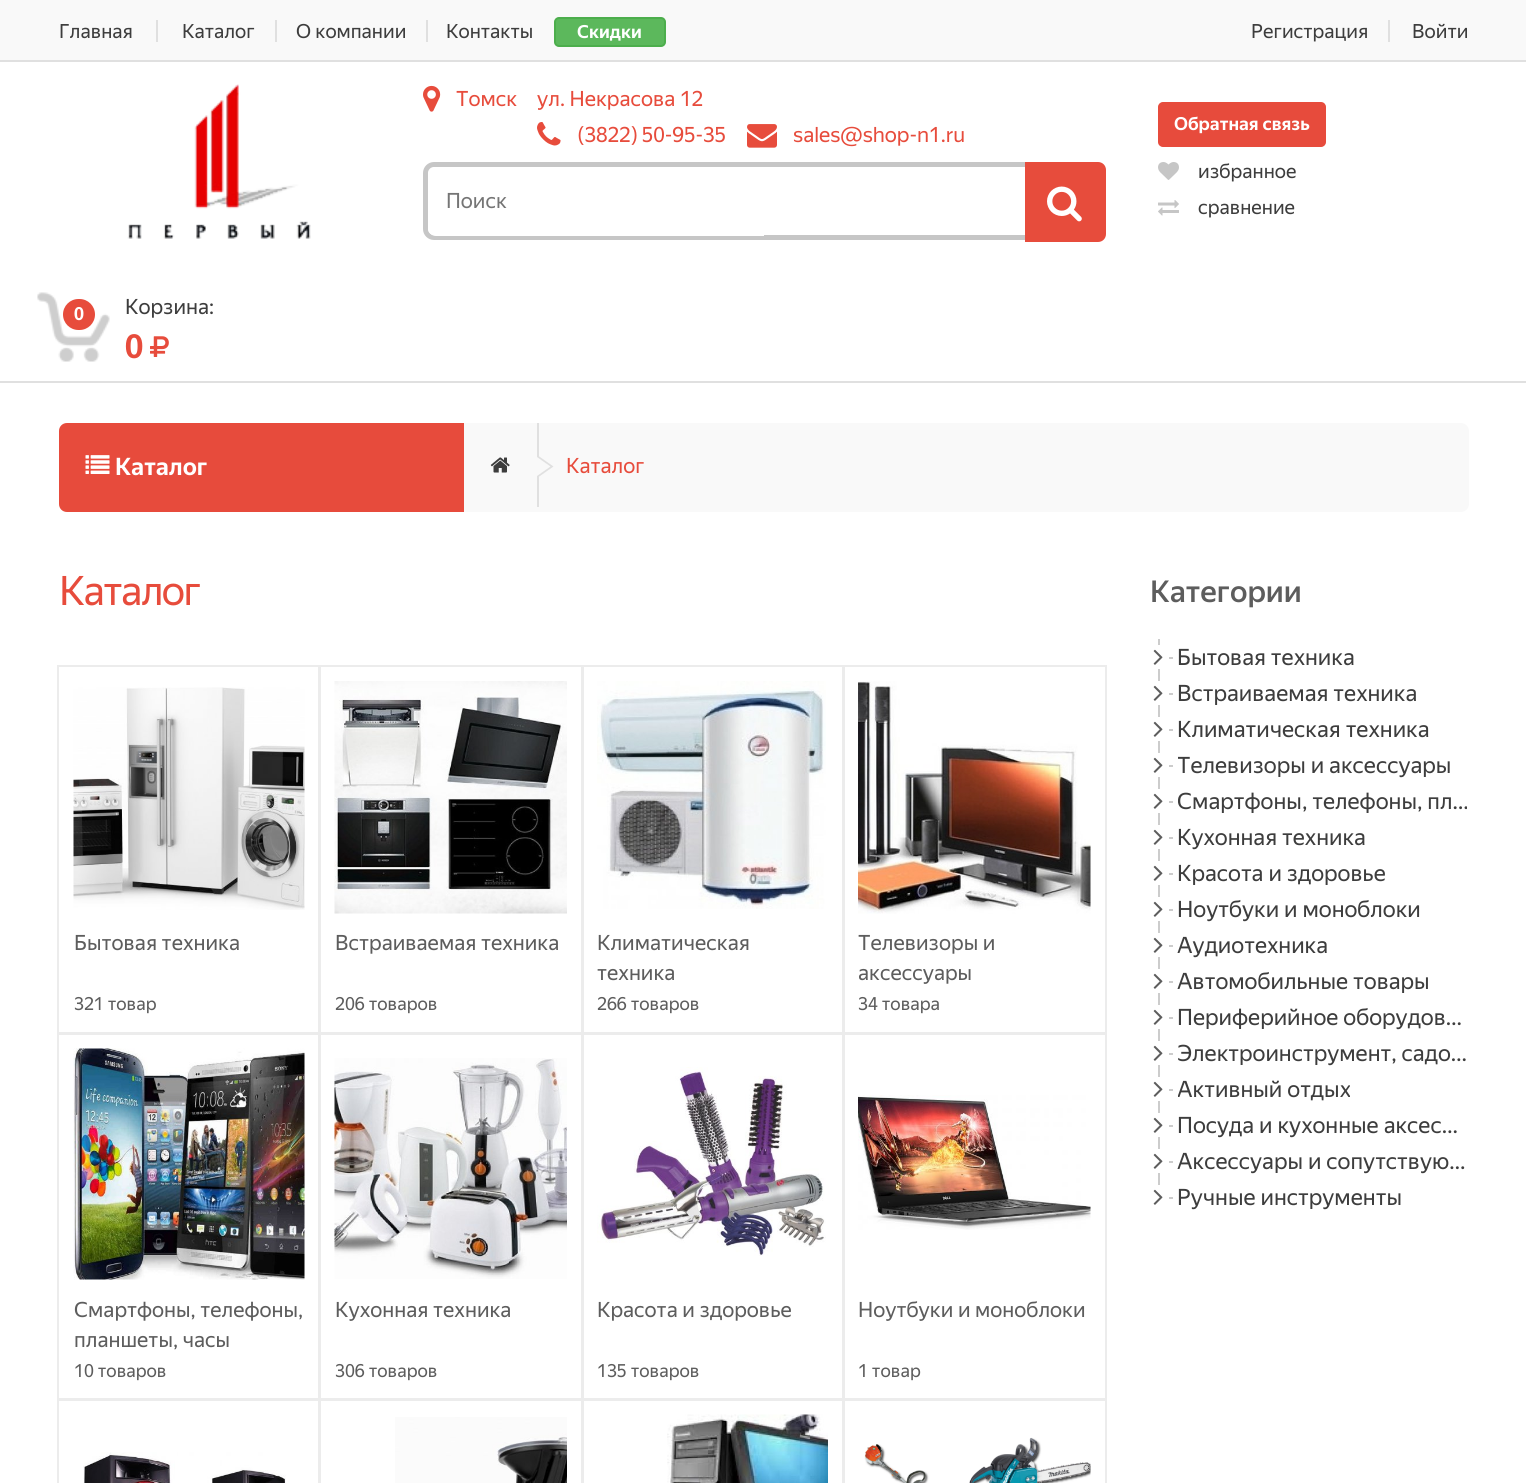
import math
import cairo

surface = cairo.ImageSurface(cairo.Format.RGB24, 1526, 1483)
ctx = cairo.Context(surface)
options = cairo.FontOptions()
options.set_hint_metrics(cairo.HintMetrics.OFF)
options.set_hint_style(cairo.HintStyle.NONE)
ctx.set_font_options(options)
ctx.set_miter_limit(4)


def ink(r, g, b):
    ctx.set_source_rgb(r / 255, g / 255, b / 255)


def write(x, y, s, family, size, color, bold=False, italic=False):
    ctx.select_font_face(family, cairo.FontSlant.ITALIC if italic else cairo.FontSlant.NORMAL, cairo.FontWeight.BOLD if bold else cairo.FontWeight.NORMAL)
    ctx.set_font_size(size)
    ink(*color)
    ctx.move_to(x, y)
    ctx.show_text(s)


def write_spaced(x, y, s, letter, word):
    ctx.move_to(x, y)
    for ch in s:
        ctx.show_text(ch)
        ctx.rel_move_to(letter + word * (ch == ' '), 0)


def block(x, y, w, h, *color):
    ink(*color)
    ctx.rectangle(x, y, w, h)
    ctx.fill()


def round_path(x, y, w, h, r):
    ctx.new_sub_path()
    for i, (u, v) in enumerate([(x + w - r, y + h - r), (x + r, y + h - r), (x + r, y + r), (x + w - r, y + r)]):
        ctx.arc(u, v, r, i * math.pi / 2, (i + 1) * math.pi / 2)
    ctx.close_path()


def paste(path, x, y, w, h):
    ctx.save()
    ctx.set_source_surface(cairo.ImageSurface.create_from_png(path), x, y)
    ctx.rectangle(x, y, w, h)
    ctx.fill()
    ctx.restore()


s1 = dict(family="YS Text", size=19.5, color=(61, 61, 61))
s2 = dict(family="YS Text", size=18, color=(255, 255, 255), bold=True)
s3 = dict(family="YS Text", size=21, color=(231, 76, 60))
s4 = dict(family="YS Text", size=21, color=(117, 117, 117))
s5 = dict(family="YS Text", size=21, color=(61, 61, 61))
s6 = dict(family="YS Text", size=33, color=(231, 76, 60), bold=True)
s7 = dict(family="YS Text", size=24, color=(255, 255, 255), bold=True)
s8 = dict(family="YS Text", size=21, color=(93, 93, 93))
s9 = dict(family="YS Text", size=18, color=(93, 93, 93))
s10 = dict(family="YS Text Medium", size=30, color=(93, 93, 93))
s11 = dict(family="YS Text", size=22.5, color=(61, 61, 61))

ink(255, 255, 255)
ctx.paint()
block(0, 0, 1526, 60, 249, 249, 249)
block(0, 60, 1526, 2, 224, 224, 224)
block(156, 20, 2, 22, 224, 224, 224)
write(59, 38, "Главная", **s1)
block(275, 20, 2, 22, 224, 224, 224)
write(182, 38, "Каталог", **s1)
block(426, 20, 2, 22, 224, 224, 224)
write(296, 38, "О компании", **s1)
write(446, 38, "Контакты", **s1)
ink(92, 184, 92)
round_path(555, 18, 110, 28, 4)
ctx.fill_preserve()
ink(76, 174, 76)
ctx.stroke()
write(577, 38, "Скидки", **s2)
block(1388, 20, 2, 22, 224, 224, 224)
write(1251, 38, "Регистрация", **s1)
write(1412, 38, "Войти", **s1)
block(0, 381, 1526, 2, 224, 224, 224)
paste("pic1.png", 127, 84, 184, 155)
paste("pic2.png", 423, 85, 18, 27)
write(456, 106, "Томск", **s3)
write(537, 106, "ул. Некрасова 12", **s3)
paste("pic3.png", 537, 122, 24, 24)
write_spaced(577, 142, "(3822) 50-95-35", 0, -1)
paste("pic4.png", 747, 124, 30, 24)
write(793, 142, "sales@shop-n1.ru", **s3)
round_path(425.5, 164.5, 678, 73, 8.5)
ink(198, 198, 198)
ctx.set_line_width(5)
ctx.stroke()
ink(255, 255, 255)
ctx.new_path()
ctx.move_to(436, 167)
ctx.line_to(764, 167)
ctx.line_to(764, 236)
ctx.line_to(436, 236)
ctx.curve_to(431.5, 236, 428, 232.5, 428, 228)
ctx.line_to(428, 175)
ctx.curve_to(428, 170.5, 431.5, 167, 436, 167)
ctx.close_path()
ctx.fill()
write(446, 208, "Поиск", **s4)
ink(231, 76, 60)
ctx.new_path()
ctx.move_to(1025, 162)
ctx.line_to(1098, 162)
ctx.curve_to(1102.5, 162, 1106, 165.5, 1106, 170)
ctx.line_to(1106, 234)
ctx.curve_to(1106, 238.5, 1102.5, 242, 1098, 242)
ctx.line_to(1025, 242)
ctx.close_path()
ctx.fill()
paste("pic5.png", 1047, 186, 35, 36)
ink(231, 75, 60)
round_path(1159, 103, 166, 43, 4)
ctx.fill_preserve()
ctx.set_line_width(2)
ctx.stroke()
write(1174, 130, "Обратная связь", **s2)
paste("pic6.png", 1158, 162, 21, 18)
write(1198, 178, "избранное", **s1)
paste("pic7.png", 1158, 200, 21, 16)
write(1198, 214, "сравнение", **s1)
paste("pic8.png", 37, 292, 73, 70)
ink(231, 76, 60)
round_path(63, 299, 32, 31, 15.5)
ctx.fill()
write(74, 320, "0", **s2)
write(125, 314, "Корзина:", **s5)
write(125, 358, "0", **s6)
paste("pic9.png", 150, 336, 19, 21)
ink(249, 249, 249)
round_path(59, 423, 1410, 89, 8)
ctx.fill()
ink(231, 75, 60)
ctx.new_path()
ctx.move_to(67, 423)
ctx.line_to(464, 423)
ctx.line_to(464, 512)
ctx.line_to(67, 512)
ctx.curve_to(62.5, 512, 59, 508.5, 59, 504)
ctx.line_to(59, 431)
ctx.curve_to(59, 426.5, 62.5, 423, 67, 423)
ctx.close_path()
ctx.fill()
paste("pic10.png", 85, 455, 25, 19)
write(115, 475, "Каталог", **s7)
block(537, 423, 2, 84, 224, 224, 224)
paste("pic11.png", 490, 457, 20, 16)
ctx.new_path()
ctx.move_to(538.5, 477)
ctx.line_to(538.5, 456)
ctx.line_to(553.5, 466.5)
ctx.close_path()
ctx.fill()
ink(249, 249, 249)
ctx.new_path()
ctx.move_to(535.5, 477)
ctx.line_to(535.5, 456)
ctx.line_to(550.5, 466.5)
ctx.close_path()
ctx.fill()
write(566, 473, "Каталог", **s3)
ctx.set_font_size(40.5)
write_spaced(59, 605, "Каталог", -1.5, 0)
ctx.rectangle(58, 666, 262, 368)
ink(236, 236, 236)
ctx.stroke()
paste("pic12.png", 73, 687, 232, 223)
write(74, 950, "Бытовая техника", **s8)
write(74, 1010, "321 товар", **s9)
ctx.rectangle(319, 666, 264, 368)
ink(236, 236, 236)
ctx.stroke()
paste("pic13.png", 334, 681, 233, 233)
write(335, 950, "Встраиваемая техника", **s8)
write(335, 1010, "206 товаров", **s9)
ctx.rectangle(582, 666, 262, 368)
ink(236, 236, 236)
ctx.stroke()
paste("pic14.png", 597, 681, 229, 228)
write(597, 950, "Климатическая", **s8)
write(597, 980, "техника", **s8)
write(597, 1010, "266 товаров", **s9)
ctx.rectangle(843, 666, 263, 368)
ink(236, 236, 236)
ctx.stroke()
paste("pic15.png", 858, 681, 233, 233)
write(858, 950, "Телевизоры и", **s8)
write(858, 980, "аксессуары", **s8)
write(858, 1010, "34 товара", **s9)
ctx.rectangle(58, 1033, 262, 367)
ink(236, 236, 236)
ctx.stroke()
paste("pic16.png", 73, 1048, 232, 232)
write(74, 1317, "Смартфоны, телефоны,", **s8)
write(74, 1347, "планшеты, часы", **s8)
write(74, 1377, "10 товаров", **s9)
ctx.rectangle(319, 1033, 264, 367)
ink(236, 236, 236)
ctx.stroke()
paste("pic17.png", 334, 1058, 233, 221)
write(335, 1317, "Кухонная техника", **s8)
write(335, 1377, "306 товаров", **s9)
ctx.rectangle(582, 1033, 262, 367)
ink(236, 236, 236)
ctx.stroke()
paste("pic18.png", 597, 1067, 229, 189)
write(597, 1317, "Красота и здоровье", **s8)
write(597, 1377, "135 товаров", **s9)
ctx.rectangle(843, 1033, 263, 367)
ink(236, 236, 236)
ctx.stroke()
paste("pic19.png", 858, 1095, 233, 135)
write(858, 1317, "Ноутбуки и моноблоки", **s8)
write(858, 1377, "1 товар", **s9)
ctx.rectangle(58, 1399, 262, 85)
ink(236, 236, 236)
ctx.stroke()
paste("pic20.png", 83, 1452, 203, 31)
ctx.rectangle(319, 1399, 264, 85)
ctx.stroke()
paste("pic21.png", 395, 1417, 172, 66)
ctx.rectangle(582, 1399, 262, 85)
ctx.stroke()
paste("pic22.png", 667, 1414, 161, 69)
ctx.rectangle(843, 1399, 263, 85)
ctx.stroke()
paste("pic23.png", 864, 1437, 227, 46)
write(1150, 602, "Категории", **s10)
block(1158, 639, 2, 546, 204, 204, 204)
block(1158, 645, 2, 24, 255, 255, 255)
paste("pic24.png", 1153, 649, 10, 16)
block(1169, 657, 4, 2, 204, 204, 204)
write(1177, 665, "Бытовая техника", **s11)
block(1158, 681, 2, 24, 255, 255, 255)
paste("pic24.png", 1153, 685, 10, 16)
block(1169, 693, 4, 2, 204, 204, 204)
write(1177, 701, "Встраиваемая техника", **s11)
block(1158, 717, 2, 24, 255, 255, 255)
paste("pic24.png", 1153, 721, 10, 16)
block(1169, 729, 4, 2, 204, 204, 204)
write(1177, 737, "Климатическая техника", **s11)
block(1158, 753, 2, 24, 255, 255, 255)
paste("pic24.png", 1153, 757, 10, 16)
block(1169, 765, 4, 2, 204, 204, 204)
ctx.save()
ctx.rectangle(1178, 747, 273, 36)
ctx.clip()
write(1177, 773, "Телевизоры и аксессуары", **s11)
ctx.restore()
block(1158, 789, 2, 24, 255, 255, 255)
paste("pic24.png", 1153, 793, 10, 16)
block(1169, 801, 4, 2, 204, 204, 204)
ctx.save()
ctx.rectangle(1178, 783, 291, 36)
ctx.clip()
write(1177, 809, "Смартфоны, телефоны, пл…", **s11)
ctx.restore()
block(1158, 825, 2, 24, 255, 255, 255)
paste("pic24.png", 1153, 829, 10, 16)
block(1169, 837, 4, 2, 204, 204, 204)
write(1177, 845, "Кухонная техника", **s11)
block(1158, 861, 2, 24, 255, 255, 255)
paste("pic24.png", 1153, 865, 10, 16)
block(1169, 873, 4, 2, 204, 204, 204)
write(1177, 881, "Красота и здоровье", **s11)
block(1158, 897, 2, 24, 255, 255, 255)
paste("pic24.png", 1153, 901, 10, 16)
block(1169, 909, 4, 2, 204, 204, 204)
write(1177, 917, "Ноутбуки и моноблоки", **s11)
block(1158, 933, 2, 24, 255, 255, 255)
paste("pic24.png", 1153, 937, 10, 16)
block(1169, 945, 4, 2, 204, 204, 204)
write(1177, 953, "Аудиотехника", **s11)
block(1158, 969, 2, 24, 255, 255, 255)
paste("pic24.png", 1153, 973, 10, 16)
block(1169, 981, 4, 2, 204, 204, 204)
write(1177, 989, "Автомобильные товары", **s11)
block(1158, 1005, 2, 24, 255, 255, 255)
paste("pic24.png", 1153, 1009, 10, 16)
block(1169, 1017, 4, 2, 204, 204, 204)
write(1177, 1025, "Периферийное оборудов…", **s11)
block(1158, 1041, 2, 24, 255, 255, 255)
paste("pic24.png", 1153, 1045, 10, 16)
block(1169, 1053, 4, 2, 204, 204, 204)
write(1177, 1061, "Электроинструмент, садо…", **s11)
block(1158, 1077, 2, 24, 255, 255, 255)
paste("pic24.png", 1153, 1081, 10, 16)
block(1169, 1089, 4, 2, 204, 204, 204)
ctx.save()
ctx.rectangle(1178, 1071, 172, 36)
ctx.clip()
write(1177, 1097, "Активный отдых", **s11)
ctx.restore()
block(1158, 1113, 2, 24, 255, 255, 255)
paste("pic24.png", 1153, 1117, 10, 16)
block(1169, 1125, 4, 2, 204, 204, 204)
write(1177, 1133, "Посуда и кухонные аксес…", **s11)
block(1158, 1149, 2, 24, 255, 255, 255)
paste("pic24.png", 1153, 1153, 10, 16)
block(1169, 1161, 4, 2, 204, 204, 204)
write(1177, 1169, "Аксессуары и сопутствую…", **s11)
paste("pic24.png", 1153, 1189, 10, 16)
block(1169, 1197, 4, 2, 204, 204, 204)
write(1177, 1205, "Ручные инструменты", **s11)
surface.write_to_png("screenshot.png")
